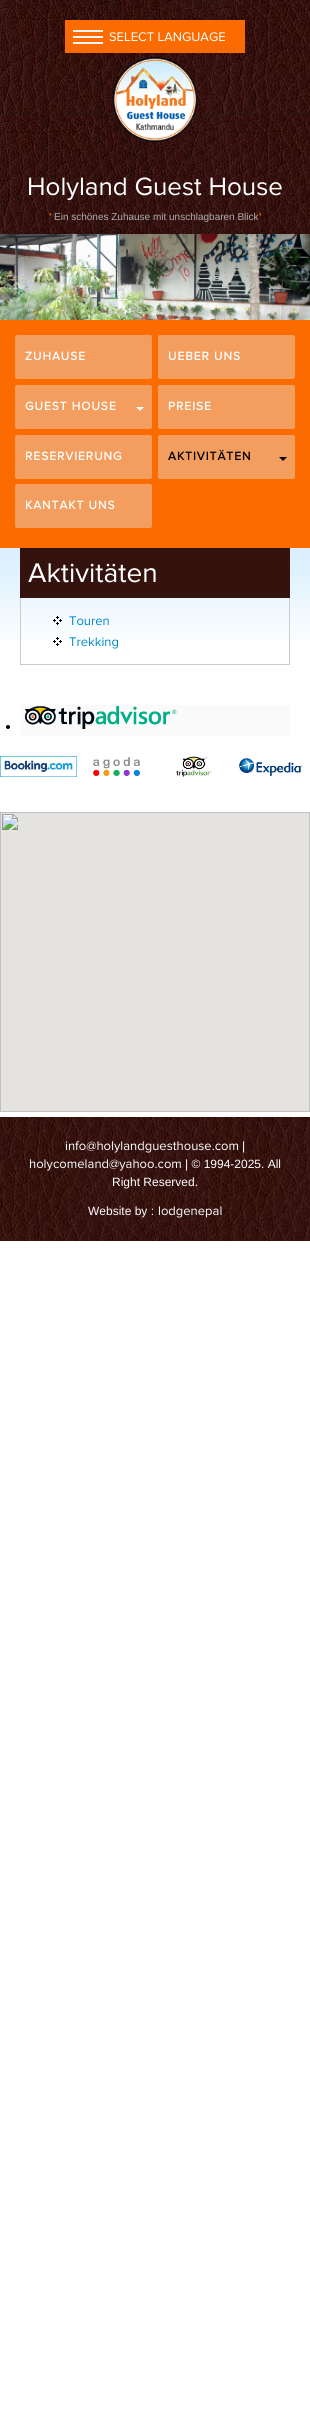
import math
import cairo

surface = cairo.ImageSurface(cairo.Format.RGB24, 310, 2429)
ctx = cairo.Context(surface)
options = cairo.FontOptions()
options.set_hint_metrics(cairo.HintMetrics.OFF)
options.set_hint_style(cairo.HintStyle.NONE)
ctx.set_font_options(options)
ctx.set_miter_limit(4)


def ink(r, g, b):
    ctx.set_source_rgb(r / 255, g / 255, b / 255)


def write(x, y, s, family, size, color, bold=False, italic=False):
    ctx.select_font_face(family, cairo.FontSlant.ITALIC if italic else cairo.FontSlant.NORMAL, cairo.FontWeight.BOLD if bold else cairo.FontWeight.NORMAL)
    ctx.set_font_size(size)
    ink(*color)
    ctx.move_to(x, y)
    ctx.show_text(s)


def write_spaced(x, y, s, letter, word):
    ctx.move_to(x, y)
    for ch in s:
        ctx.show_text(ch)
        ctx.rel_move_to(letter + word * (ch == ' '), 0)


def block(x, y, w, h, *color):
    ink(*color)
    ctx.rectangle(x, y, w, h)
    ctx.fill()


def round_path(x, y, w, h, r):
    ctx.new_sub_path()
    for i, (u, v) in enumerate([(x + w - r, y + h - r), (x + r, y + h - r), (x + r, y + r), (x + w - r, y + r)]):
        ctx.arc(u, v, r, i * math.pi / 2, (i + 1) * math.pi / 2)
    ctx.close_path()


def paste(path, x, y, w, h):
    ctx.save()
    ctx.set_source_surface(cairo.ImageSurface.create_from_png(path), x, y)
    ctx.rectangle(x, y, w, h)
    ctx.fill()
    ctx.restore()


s1 = dict(family="Proxima Nova", size=13, color=(255, 255, 255))
s2 = dict(family="Proxima Nova", size=26, color=(255, 255, 255))
s3 = dict(family="Liberation Sans", size=10, color=(252, 107, 0), bold=True)
s4 = dict(family="Liberation Sans", size=10, color=(174, 174, 174))
s5 = dict(family="Proxima Nova", size=28, color=(255, 255, 255))
s6 = dict(family="Proxima Nova", size=13, color=(0, 136, 204))
s7 = dict(family="Liberation Sans", size=12, color=(255, 255, 255))

ink(255, 255, 255)
ctx.paint()
paste("pic1.png", 0, 0, 310, 234)
block(65, 20, 180, 33, 252, 107, 0)
block(73, 30, 30, 2, 245, 245, 245)
block(73, 36, 30, 2, 245, 245, 245)
block(73, 42, 30, 2, 245, 245, 245)
write(109, 41, "SELECT LANGUAGE", **s1)
paste("pic2.png", 112, 57, 86, 85)
write(27, 195, "Holyland Guest House", **s2)
write(49, 220, "'", **s3)
write(54, 220, "Ein schönes Zuhause mit unschlagbaren Blick", **s4)
write(259, 220, "'", **s3)
paste("pic3.png", 0, 234, 310, 86)
block(0, 320, 310, 228, 252, 107, 0)
ink(243, 157, 94)
round_path(15, 335, 137, 44, 2)
ctx.fill()
ctx.select_font_face("Proxima Nova", cairo.FontSlant.NORMAL, cairo.FontWeight.BOLD)
ctx.set_font_size(12)
ink(255, 255, 255)
write_spaced(25, 360, "ZUHAUSE", 1, 0)
ink(243, 157, 94)
round_path(158, 335, 137, 44, 2)
ctx.fill()
ink(255, 255, 255)
write_spaced(168, 360, "UEBER UNS", 1, 0)
ink(243, 157, 94)
round_path(15, 385, 137, 44, 2)
ctx.fill()
ink(255, 255, 255)
write_spaced(25, 410, "GUEST HOUSE", 1, 0)
ctx.new_path()
ctx.move_to(136, 407)
ctx.line_to(144, 407)
ctx.line_to(140, 411)
ctx.close_path()
ctx.fill()
ink(243, 157, 94)
round_path(158, 385, 137, 44, 2)
ctx.fill()
ink(255, 255, 255)
write_spaced(168, 410, "PREISE", 1, 0)
ink(243, 157, 94)
round_path(15, 435, 137, 44, 2)
ctx.fill()
ink(255, 255, 255)
write_spaced(25, 460, "RESERVIERUNG", 1, 0)
ink(243, 157, 94)
round_path(158, 435, 137, 44, 2)
ctx.fill()
ink(0, 0, 0)
write_spaced(168, 460, "AKTIVITÄTEN", 1, 0)
ctx.new_path()
ctx.move_to(279, 457)
ctx.line_to(287, 457)
ctx.line_to(283, 461)
ctx.close_path()
ctx.fill()
ink(243, 157, 94)
round_path(15, 484, 137, 44, 2)
ctx.fill()
ink(255, 255, 255)
write_spaced(25, 509, "KANTAKT UNS", 1, 0)
paste("pic4.png", 0, 548, 310, 92)
block(20, 548, 270, 50, 52, 19, 14)
write(28, 582, "Aktivitäten", **s5)
block(289, 598, 1, 67, 204, 204, 204)
block(20, 664, 270, 1, 204, 204, 204)
block(20, 598, 1, 67, 204, 204, 204)
paste("pic5.png", 53, 616, 9, 9)
write(69, 625, "Touren", **s6)
paste("pic6.png", 53, 637, 9, 9)
write(69, 646, "Trekking", **s6)
block(20, 705, 270, 31, 250, 250, 250)
ink(0, 0, 0)
ctx.new_path()
ctx.arc(8, 727, 2, 0, 2 * math.pi)
ctx.fill()
paste("pic7.png", 25, 706, 152, 23)
paste("pic8.png", 0, 756, 77, 21)
paste("pic9.png", 92, 757, 50, 20)
paste("pic10.png", 176, 756, 36, 21)
paste("pic11.png", 239, 758, 64, 19)
paste("pic12.png", 0, 812, 310, 300)
paste("pic13.png", 0, 1117, 310, 124)
write(65, 1150, "info@holylandguesthouse.com", **s1)
write(242, 1150, "|", **s7)
write(29, 1168, "holycomeland@yahoo.com", **s1)
write(185, 1168, "| © 1994-2025. All", **s7)
write(112, 1186, "Right Reserved.", **s7)
write(88, 1215, "Website by :", **s7)
write(158, 1215, "lodgenepal", **s1)
surface.write_to_png("screenshot.png")
